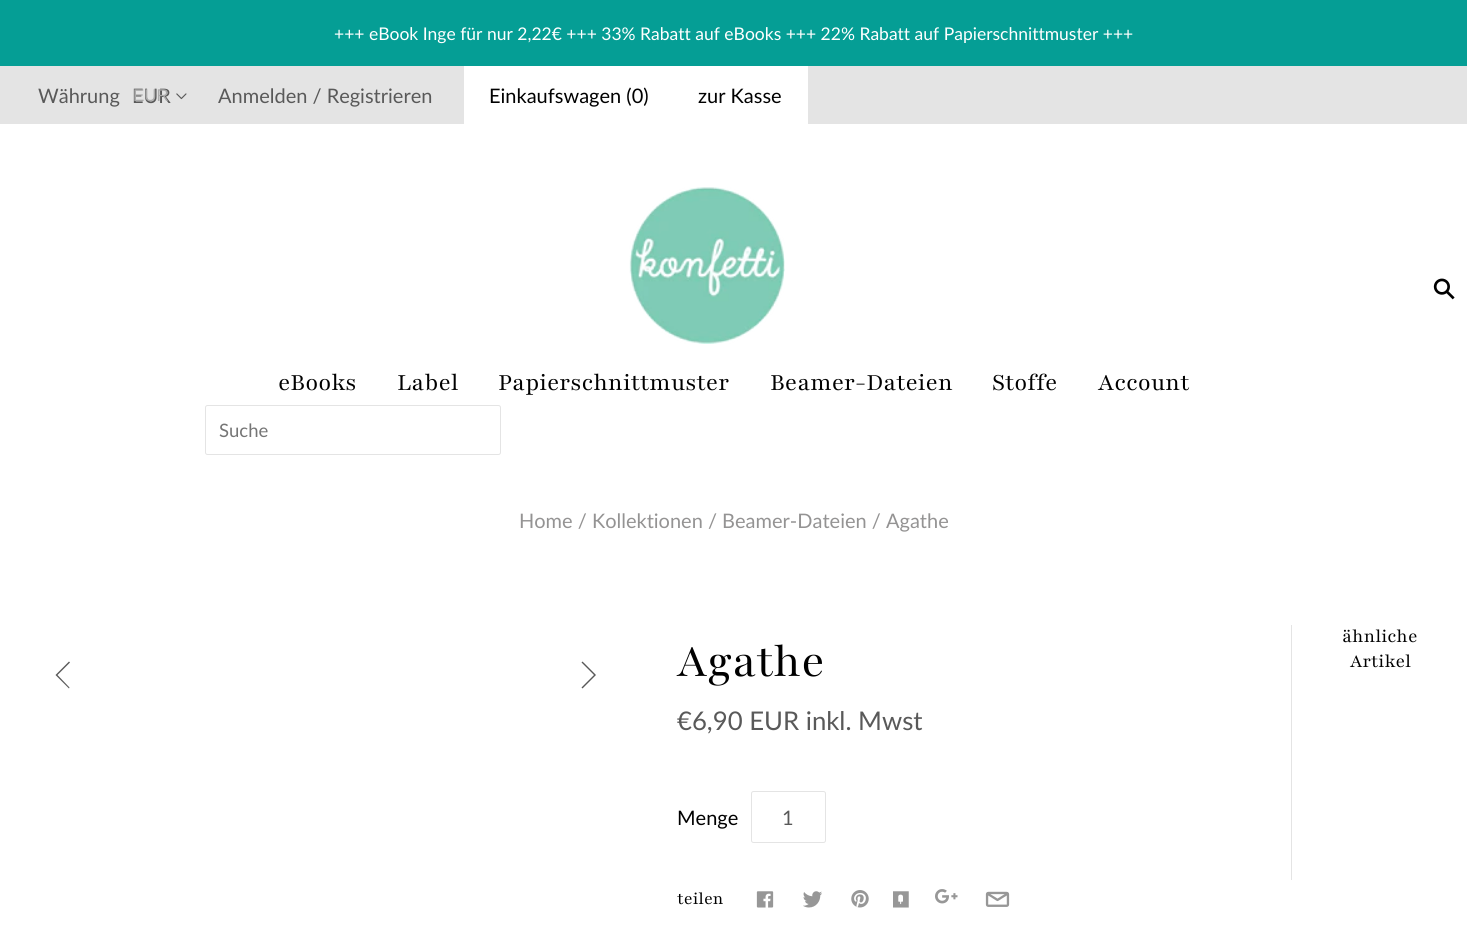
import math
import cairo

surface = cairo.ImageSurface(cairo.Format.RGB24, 1467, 946)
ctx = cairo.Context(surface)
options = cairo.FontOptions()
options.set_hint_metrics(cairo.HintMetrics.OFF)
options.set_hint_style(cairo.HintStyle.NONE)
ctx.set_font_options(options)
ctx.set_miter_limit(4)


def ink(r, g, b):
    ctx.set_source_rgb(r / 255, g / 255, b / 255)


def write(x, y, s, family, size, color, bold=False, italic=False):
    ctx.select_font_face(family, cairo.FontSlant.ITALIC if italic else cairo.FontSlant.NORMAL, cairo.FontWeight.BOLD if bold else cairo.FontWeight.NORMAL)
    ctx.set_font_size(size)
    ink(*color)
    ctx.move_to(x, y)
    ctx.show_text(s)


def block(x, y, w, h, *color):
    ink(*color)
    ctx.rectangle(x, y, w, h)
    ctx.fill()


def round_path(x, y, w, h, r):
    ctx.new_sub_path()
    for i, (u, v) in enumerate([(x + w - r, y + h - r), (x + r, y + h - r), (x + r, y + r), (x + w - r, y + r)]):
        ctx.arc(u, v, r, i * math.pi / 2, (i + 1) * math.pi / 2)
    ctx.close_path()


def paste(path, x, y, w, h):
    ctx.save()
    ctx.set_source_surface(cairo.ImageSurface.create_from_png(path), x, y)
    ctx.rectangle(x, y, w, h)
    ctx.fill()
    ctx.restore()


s1 = dict(family="Lato", size=17.5, color=(255, 255, 255))
s2 = dict(family="Lato", size=20, color=(89, 89, 89))
s3 = dict(family="Liberation Sans", size=17, color=(171, 171, 171))
s4 = dict(family="Lato", size=20, color=(0, 0, 0))
s5 = dict(family="Playfair", size=26, color=(0, 0, 0))
s6 = dict(family="Lato", size=18.5, color=(117, 117, 117))
s7 = dict(family="Lato", size=20, color=(148, 147, 147))
s8 = dict(family="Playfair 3", size=50, color=(0, 0, 0))
s9 = dict(family="Lato", size=25.75, color=(89, 89, 89))
s10 = dict(family="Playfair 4", size=18.5, color=(0, 0, 0))
s11 = dict(family="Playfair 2", size=20, color=(0, 0, 0))

ink(255, 255, 255)
ctx.paint()
block(0, 0, 1467, 66, 5, 158, 149)
write(334, 40, "+++ eBook Inge für nur 2,22€ +++ 33% Rabatt auf eBooks +++ 22% Rabatt auf Papierschnittmuster +++", **s1)
block(0, 66, 1467, 58, 228, 228, 228)
write(38, 103, "Währung", **s2)
write(132, 103, "EUR", **s2)
paste("pic1.png", 176, 93, 11, 7)
write(133, 101, "EUR", **s3)
write(218, 103, "Anmelden / Registrieren", **s2)
block(464, 66, 344, 58, 255, 255, 255)
write(489, 103, "Einkaufswagen (0)", **s4)
write(698, 103, "zur Kasse", **s4)
paste("pic2.png", 629, 187, 156, 157)
write(278, 390, "eBooks", **s5)
write(397, 390, "Label", **s5)
write(498, 390, "Papierschnittmuster", **s5)
write(770, 390, "Beamer-Dateien", **s5)
write(992, 390, "Stoffe", **s5)
write(1098, 390, "Account", **s5)
paste("pic3.png", 1433, 278, 22, 22)
round_path(205.5, 405.5, 295, 49, 2)
ink(228, 228, 228)
ctx.set_line_width(1)
ctx.stroke()
write(219, 437, "Suche", **s6)
write(519, 528, "Home / Kollektionen / Beamer-Dateien / Agathe", **s7)
ink(89, 89, 89)
ctx.new_path()
ctx.move_to(56, 674.5)
ctx.line_to(55.5, 675)
ctx.line_to(69, 688.5)
ctx.line_to(69.5, 687.5)
ctx.line_to(57, 674.5)
ctx.line_to(57, 675.5)
ctx.line_to(70, 662.5)
ctx.line_to(69, 661.5)
ctx.close_path()
ctx.fill()
ctx.new_path()
ctx.move_to(595.5, 674.5)
ctx.line_to(596, 675)
ctx.line_to(582.5, 688.5)
ctx.line_to(581.5, 687.5)
ctx.line_to(594.5, 674.5)
ctx.line_to(594.5, 675.5)
ctx.line_to(581.5, 662.5)
ctx.line_to(582.5, 661.5)
ctx.close_path()
ctx.fill()
write(677, 676, "Agathe", **s8)
write(677, 730, "€6,90 EUR inkl. Mwst", **s9)
write(677, 825, "Menge", **s4)
round_path(751.5, 791.5, 74, 51, 2)
ink(228, 228, 228)
ctx.stroke()
write(782, 825, "1", **s2)
write(677, 904, "teilen", **s10)
paste("pic4.png", 756, 891, 18, 17)
paste("pic5.png", 803, 891, 19, 17)
paste("pic6.png", 851, 890, 18, 18)
paste("pic7.png", 893, 891, 16, 17)
paste("pic8.png", 935, 889, 23, 15)
paste("pic9.png", 985, 891, 25, 16)
block(1291, 625, 1, 255, 228, 228, 228)
write(1342, 642, "ähnliche", **s11)
write(1350, 667, "Artikel", **s11)
surface.write_to_png("screenshot.png")
